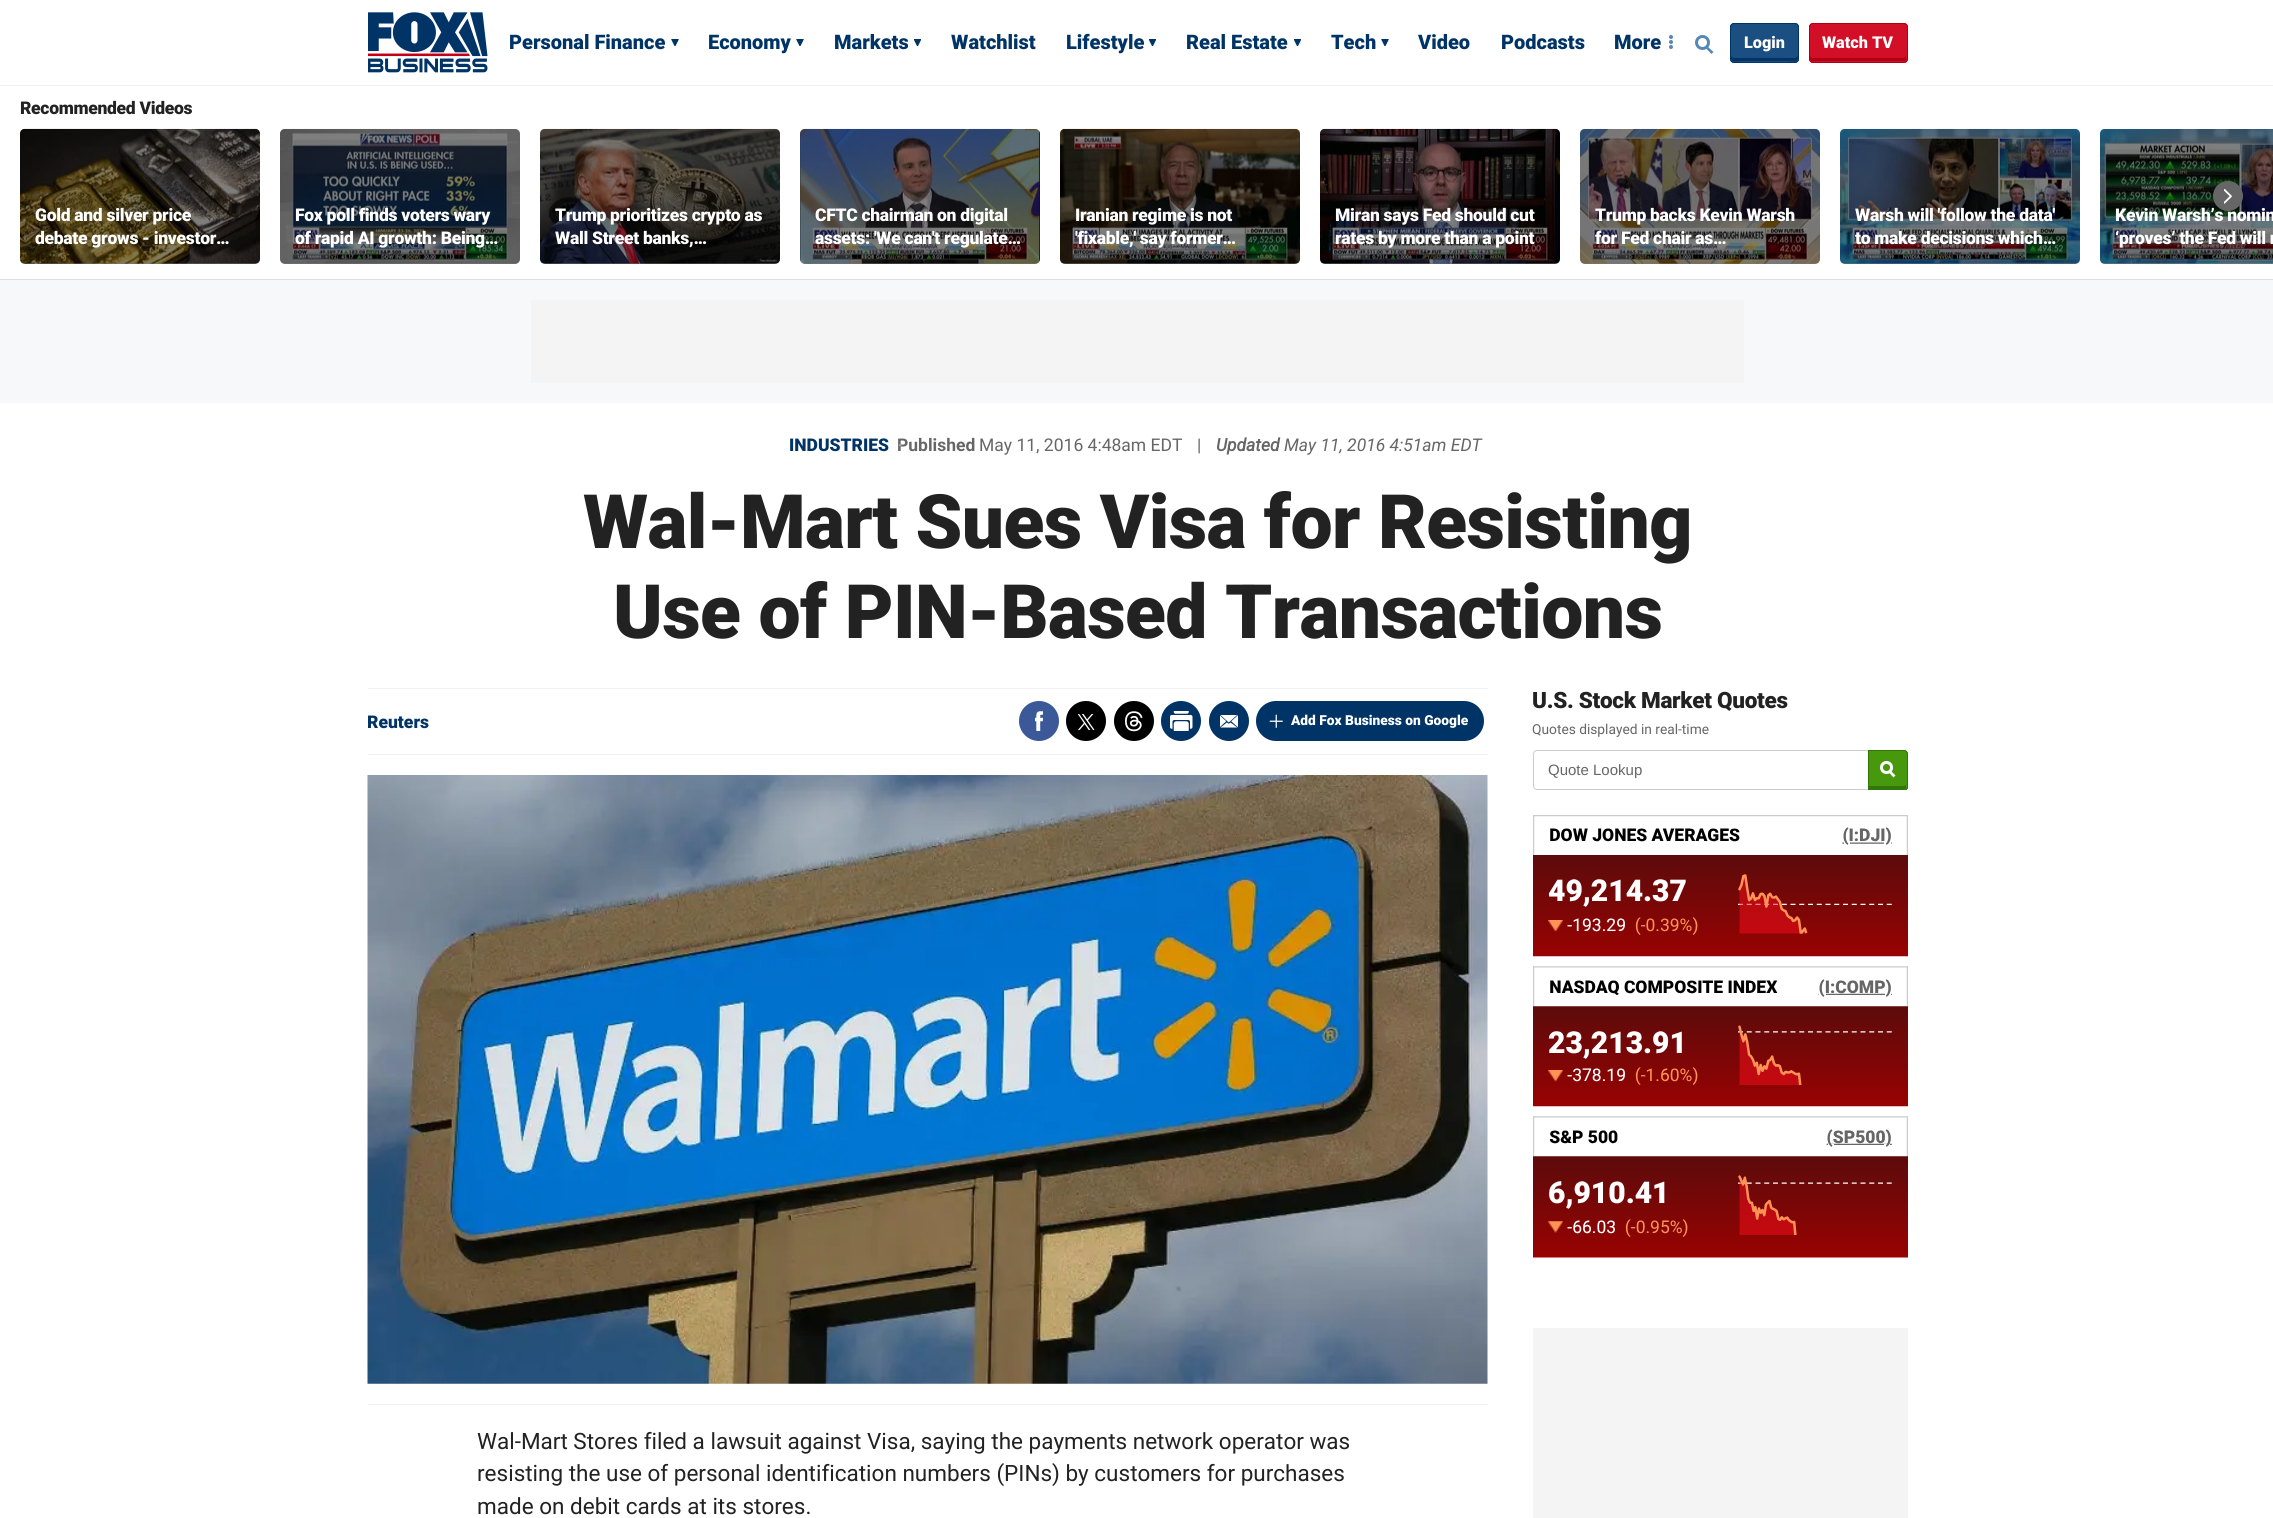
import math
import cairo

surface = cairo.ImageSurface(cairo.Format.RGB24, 2273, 1518)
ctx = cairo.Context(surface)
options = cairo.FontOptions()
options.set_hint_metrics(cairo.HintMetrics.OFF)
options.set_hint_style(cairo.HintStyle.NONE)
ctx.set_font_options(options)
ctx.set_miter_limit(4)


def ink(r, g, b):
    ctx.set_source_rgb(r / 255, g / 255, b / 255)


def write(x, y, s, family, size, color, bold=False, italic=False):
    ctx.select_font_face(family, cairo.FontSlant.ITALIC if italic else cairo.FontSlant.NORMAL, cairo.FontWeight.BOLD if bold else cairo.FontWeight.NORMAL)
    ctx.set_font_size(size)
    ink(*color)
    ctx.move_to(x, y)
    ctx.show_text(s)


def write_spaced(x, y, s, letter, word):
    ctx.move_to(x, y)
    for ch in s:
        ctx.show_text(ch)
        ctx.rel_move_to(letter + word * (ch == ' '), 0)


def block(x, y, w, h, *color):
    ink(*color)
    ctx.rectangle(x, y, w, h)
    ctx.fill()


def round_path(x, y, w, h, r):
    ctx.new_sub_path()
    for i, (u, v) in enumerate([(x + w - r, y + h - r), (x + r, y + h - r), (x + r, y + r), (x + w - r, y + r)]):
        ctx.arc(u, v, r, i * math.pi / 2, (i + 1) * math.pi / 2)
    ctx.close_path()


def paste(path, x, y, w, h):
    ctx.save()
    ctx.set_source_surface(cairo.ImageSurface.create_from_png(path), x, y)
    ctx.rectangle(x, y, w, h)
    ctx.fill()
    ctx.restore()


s1 = dict(family="Roboto Black", size=20, color=(0, 51, 102))
s2 = dict(family="Roboto Black", size=16.25, color=(255, 255, 255))
s3 = dict(family="Roboto Black", size=17.5, color=(0, 51, 102))
s4 = dict(family="Roboto", size=17.5, color=(102, 102, 102), bold=True)
s5 = dict(family="Roboto", size=17.5, color=(102, 102, 102))
s6 = dict(family="Roboto", size=17.5, color=(102, 102, 102), bold=True, italic=True)
s7 = dict(family="Roboto", size=17.5, color=(102, 102, 102), italic=True)
s8 = dict(family="Roboto", size=25, color=(160, 160, 160))
s9 = dict(family="Roboto Black", size=13.75, color=(255, 255, 255))
s10 = dict(family="Roboto", size=13.75, color=(102, 102, 102))
s11 = dict(family="Liberation Sans", size=15, color=(102, 102, 102))
s12 = dict(family="Roboto", size=22.5, color=(34, 34, 34))

ink(255, 255, 255)
ctx.paint()
block(0, 85, 2273, 1, 239, 242, 245)
paste("pic1.png", 368, 12, 120, 61)
write(509, 49, "Personal Finance", **s1)
paste("pic2.png", 671, 39, 8, 7)
write(708, 49, "Economy", **s1)
paste("pic2.png", 796, 39, 8, 7)
write(834, 49, "Markets", **s1)
paste("pic3.png", 914, 39, 7, 7)
write(951, 49, "Watchlist", **s1)
write(1066, 49, "Lifestyle", **s1)
paste("pic3.png", 1149, 39, 7, 7)
write(1186, 49, "Real Estate", **s1)
paste("pic3.png", 1294, 39, 7, 7)
write(1331, 49, "Tech", **s1)
paste("pic2.png", 1381, 39, 8, 7)
write(1418, 49, "Video", **s1)
write(1501, 49, "Podcasts", **s1)
write(1614, 49, "More", **s1)
ink(87, 135, 184)
ctx.new_path()
ctx.arc(1671, 47, 2, 0, 2 * math.pi)
ctx.fill()
ctx.arc(1671, 42, 2, 0, 2 * math.pi)
ctx.fill()
ctx.arc(1671, 37, 2, 0, 2 * math.pi)
ctx.fill()
ctx.arc(1702.5, 42.5, 6, 0, 2 * math.pi)
ctx.set_line_width(3)
ctx.stroke()
ctx.new_path()
ctx.move_to(1707, 46)
ctx.line_to(1713.5, 52)
ctx.line_to(1711.5, 54)
ctx.line_to(1705.5, 48)
ctx.close_path()
ctx.fill()
ink(27, 78, 129)
round_path(1730, 23, 69, 40, 4)
ctx.fill()
ink(0, 51, 102)
ctx.new_path()
ctx.move_to(1731, 55)
ctx.curve_to(1731, 64, 1734, 61, 1744, 61)
ctx.line_to(1785, 61)
ctx.curve_to(1795, 61, 1798, 64, 1798, 55)
ctx.curve_to(1798, 56, 1796, 58, 1795, 58)
ctx.line_to(1734, 58)
ctx.curve_to(1732, 58, 1731, 56, 1731, 55)
ctx.close_path()
ctx.fill()
round_path(1730.5, 23.5, 68, 39, 3.5)
ctx.set_line_width(1)
ctx.stroke()
write(1744, 48, "Login", **s2)
ink(210, 15, 38)
round_path(1809, 23, 99, 40, 4)
ctx.fill()
ink(174, 0, 21)
ctx.new_path()
ctx.move_to(1810, 55)
ctx.line_to(1810, 58)
ctx.curve_to(1810, 60, 1811, 61, 1812, 61)
ctx.line_to(1904, 61)
ctx.curve_to(1905, 61, 1906, 60, 1906, 58)
ctx.line_to(1906, 55)
ctx.curve_to(1906, 56, 1905, 58, 1904, 58)
ctx.line_to(1812, 58)
ctx.curve_to(1811, 58, 1810, 56, 1810, 55)
ctx.close_path()
ctx.fill()
round_path(1809.5, 23.5, 98, 39, 3.5)
ctx.stroke()
write(1822, 48, "Watch TV", **s2)
block(0, 280, 2273, 123, 246, 248, 250)
block(0, 279, 2273, 1, 221, 221, 221)
ctx.set_font_size(17.5)
ink(34, 34, 34)
write_spaced(20, 114, "Recommended Videos", -0.3, 0)
ink(244, 244, 244)
ctx.new_path()
ctx.move_to(2105, 129)
ctx.line_to(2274, 129)
ctx.line_to(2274, 264)
ctx.line_to(2105, 264)
ctx.curve_to(2102, 264, 2100, 262, 2100, 259)
ctx.line_to(2100, 134)
ctx.curve_to(2100, 131, 2102, 129, 2105, 129)
ctx.close_path()
ctx.fill()
paste("pic13.png", 2100, 129, 173, 135)
ctx.set_source_rgba(0, 0, 0, 0.5)
ctx.new_path()
ctx.move_to(2105, 129)
ctx.line_to(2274, 129)
ctx.line_to(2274, 264)
ctx.line_to(2105, 264)
ctx.curve_to(2102, 264, 2100, 262, 2100, 259)
ctx.line_to(2100, 134)
ctx.curve_to(2100, 131, 2102, 129, 2105, 129)
ctx.close_path()
ctx.fill()
ink(255, 255, 255)
write_spaced(2115, 221, "Kevin Warsh’s nomin", -0.3, 0)
ink(102, 102, 102)
ctx.new_path()
ctx.arc(2228, 196, 15, 0, 2 * math.pi)
ctx.fill()
paste("pic4.png", 2224, 189, 8, 15)
ink(244, 244, 244)
round_path(20, 129, 240, 135, 5)
ctx.fill()
paste("pic5.png", 20, 128, 240, 136)
ctx.set_source_rgba(0, 0, 0, 0.5)
round_path(20, 129, 240, 135, 5)
ctx.fill()
ink(255, 255, 255)
write_spaced(35, 221, "Gold and silver price", -0.3, 0)
write_spaced(35, 244, "debate grows - investor…", -0.3, 0)
ink(244, 244, 244)
round_path(280, 129, 240, 135, 5)
ctx.fill()
paste("pic6.png", 280, 128, 240, 136)
ctx.set_source_rgba(0, 0, 0, 0.5)
round_path(280, 129, 240, 135, 5)
ctx.fill()
ink(255, 255, 255)
write_spaced(295, 221, "Fox poll finds voters wary", -0.3, 0)
write_spaced(295, 244, "of rapid AI growth: Being…", -0.3, 0)
ink(244, 244, 244)
round_path(540, 129, 240, 135, 5)
ctx.fill()
paste("pic7.png", 540, 128, 240, 136)
ctx.set_source_rgba(0, 0, 0, 0.5)
round_path(540, 129, 240, 135, 5)
ctx.fill()
ink(255, 255, 255)
write_spaced(555, 221, "Trump prioritizes crypto as", -0.3, 0)
write_spaced(555, 244, "Wall Street banks,…", -0.3, 0)
ink(244, 244, 244)
round_path(800, 129, 240, 135, 5)
ctx.fill()
paste("pic8.png", 800, 128, 240, 136)
ctx.set_source_rgba(0, 0, 0, 0.5)
round_path(800, 129, 240, 135, 5)
ctx.fill()
ink(255, 255, 255)
write_spaced(815, 221, "CFTC chairman on digital", -0.3, 0)
write_spaced(815, 244, "assets: 'We can't regulate…", -0.3, 0)
ink(244, 244, 244)
round_path(1060, 129, 240, 135, 5)
ctx.fill()
paste("pic9.png", 1060, 128, 240, 136)
ctx.set_source_rgba(0, 0, 0, 0.5)
round_path(1060, 129, 240, 135, 5)
ctx.fill()
ink(255, 255, 255)
write_spaced(1075, 221, "Iranian regime is not", -0.3, 0)
write_spaced(1075, 244, "'fixable,' say former…", -0.3, 0)
ink(244, 244, 244)
round_path(1320, 129, 240, 135, 5)
ctx.fill()
paste("pic10.png", 1320, 128, 240, 136)
ctx.set_source_rgba(0, 0, 0, 0.5)
round_path(1320, 129, 240, 135, 5)
ctx.fill()
ink(255, 255, 255)
write_spaced(1335, 221, "Miran says Fed should cut", -0.3, 0)
write_spaced(1335, 244, "rates by more than a point", -0.3, 0)
ink(244, 244, 244)
round_path(1580, 129, 240, 135, 5)
ctx.fill()
paste("pic11.png", 1580, 128, 240, 136)
ctx.set_source_rgba(0, 0, 0, 0.5)
round_path(1580, 129, 240, 135, 5)
ctx.fill()
ink(255, 255, 255)
write_spaced(1595, 221, "Trump backs Kevin Warsh", -0.3, 0)
write_spaced(1595, 244, "for Fed chair as…", -0.3, 0)
ink(244, 244, 244)
round_path(1840, 129, 240, 135, 5)
ctx.fill()
paste("pic12.png", 1840, 128, 240, 136)
ctx.set_source_rgba(0, 0, 0, 0.5)
round_path(1840, 129, 240, 135, 5)
ctx.fill()
ink(255, 255, 255)
write_spaced(1855, 221, "Warsh will 'follow the data'", -0.3, 0)
write_spaced(1855, 244, "to make decisions which…", -0.3, 0)
write_spaced(2115, 244, "‘proves’ the Fed will r", -0.3, 0)
block(531, 300, 1213, 83, 244, 244, 244)
write(789, 451, "INDUSTRIES", **s3)
write(897, 451, "Published", **s4)
write(979, 451, "May 11, 2016 4:48am EDT", **s5)
write(1197, 451, "|", **s5)
write(1216, 451, "Updated", **s6)
write(1284, 451, "May 11, 2016 4:51am EDT", **s7)
write(897, 454, "·", **s8)
ctx.select_font_face("Roboto Black")
ctx.set_font_size(75)
ink(34, 34, 34)
write_spaced(583, 548, "Wal-Mart Sues Visa for Resisting", -0.6, 0)
write_spaced(613, 638, "Use of PIN-Based Transactions", -0.6, 0)
block(368, 688, 1120, 1, 239, 242, 245)
block(368, 754, 1120, 1, 239, 242, 245)
ctx.save()
ctx.rectangle(368, 689, 1120, 65)
ctx.clip()
write(367, 728, "Reuters", **s3)
ctx.restore()
ink(59, 89, 152)
ctx.new_path()
ctx.arc(1039, 721, 20, 0, 2 * math.pi)
ctx.fill()
paste("pic14.png", 1035, 711, 8, 20)
ink(0, 0, 0)
ctx.arc(1086, 721, 20, 0, 2 * math.pi)
ctx.fill()
paste("pic15.png", 1077, 714, 18, 16)
ctx.arc(1134, 721, 20, 0, 2 * math.pi)
ctx.fill()
paste("pic16.png", 1125, 711, 18, 21)
ink(0, 51, 102)
ctx.arc(1181, 721, 20, 0, 2 * math.pi)
ctx.fill()
paste("pic17.png", 1170, 711, 23, 20)
ctx.arc(1229, 721, 20, 0, 2 * math.pi)
ctx.fill()
paste("pic18.png", 1220, 715, 18, 13)
round_path(1256, 701, 228, 40, 20)
ctx.fill()
paste("pic19.png", 1269, 714, 14, 14)
write(1291, 725, "Add Fox Business on Google", **s9)
ctx.set_font_size(22.5)
ink(34, 34, 34)
write_spaced(1532, 708, "U.S. Stock Market Quotes", -0.3, 0)
write(1532, 734, "Quotes displayed in real-time", **s10)
round_path(1533.5, 750.5, 336, 39, 3.5)
ink(204, 204, 204)
ctx.stroke()
ctx.save()
ctx.rectangle(1533, 750, 375, 40)
ctx.clip()
ink(72, 152, 13)
ctx.new_path()
ctx.move_to(1868, 750)
ctx.line_to(1904, 750)
ctx.curve_to(1906, 750, 1908, 752, 1908, 754)
ctx.line_to(1908, 787)
ctx.curve_to(1908, 789, 1906, 791, 1904, 791)
ctx.line_to(1868, 791)
ctx.close_path()
ctx.fill()
ctx.restore()
ink(48, 118, 8)
ctx.new_path()
ctx.move_to(1869, 786)
ctx.line_to(1869, 790)
ctx.line_to(1903.5, 790)
ctx.curve_to(1905, 790, 1906, 789, 1906, 787.5)
ctx.line_to(1906, 784)
ctx.curve_to(1906, 785, 1905, 786, 1904, 786)
ctx.close_path()
ctx.fill()
ctx.save()
ctx.rectangle(1533, 750, 375, 40)
ctx.clip()
ctx.new_path()
ctx.move_to(1868.5, 750.5)
ctx.line_to(1904, 750.5)
ctx.curve_to(1906, 750.5, 1907.5, 752, 1907.5, 754)
ctx.line_to(1907.5, 787)
ctx.curve_to(1907.5, 789, 1906, 790.5, 1904, 790.5)
ctx.line_to(1868.5, 790.5)
ctx.close_path()
ctx.stroke()
ctx.restore()
write(1548, 775, "Quote Lookup", **s11)
ctx.new_path()
ctx.arc(1886.5, 767.5, 5, 0, 2 * math.pi)
ink(255, 255, 255)
ctx.set_line_width(3)
ctx.stroke()
ctx.new_path()
ctx.move_to(1890, 770)
ctx.line_to(1895.5, 775.5)
ctx.line_to(1893.5, 777.5)
ctx.line_to(1888.5, 772)
ctx.close_path()
ctx.fill()
paste("pic20.png", 1533, 815, 375, 443)
block(1533, 1328, 375, 190, 244, 244, 244)
block(368, 1404, 1120, 1, 239, 242, 245)
paste("pic21.png", 367, 775, 1121, 609)
write(477, 1449, "Wal-Mart Stores filed a lawsuit against Visa, saying the payments network operator was", **s12)
write(477, 1481, "resisting the use of personal identification numbers (PINs) by customers for purchases", **s12)
write(477, 1514, "made on debit cards at its stores.", **s12)
surface.write_to_png("screenshot.png")
